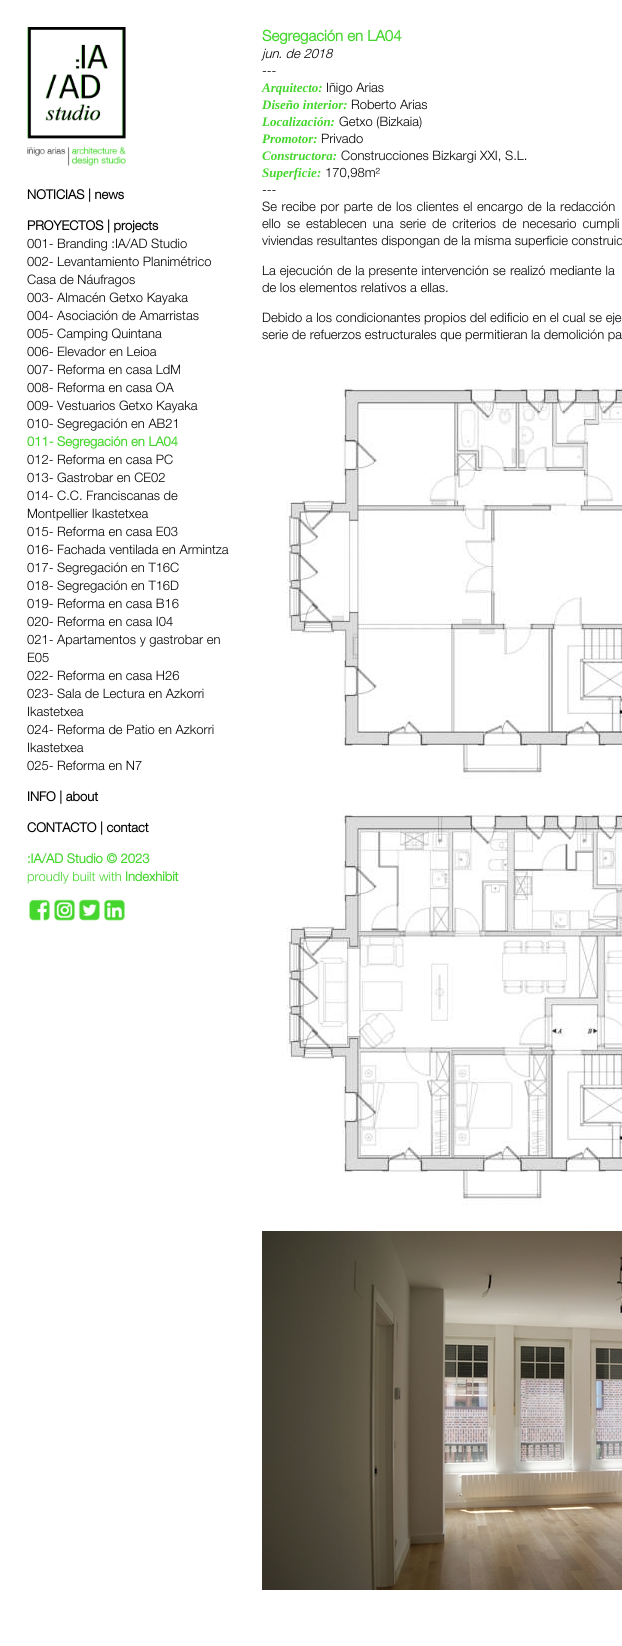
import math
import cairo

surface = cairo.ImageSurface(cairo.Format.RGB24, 622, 1646)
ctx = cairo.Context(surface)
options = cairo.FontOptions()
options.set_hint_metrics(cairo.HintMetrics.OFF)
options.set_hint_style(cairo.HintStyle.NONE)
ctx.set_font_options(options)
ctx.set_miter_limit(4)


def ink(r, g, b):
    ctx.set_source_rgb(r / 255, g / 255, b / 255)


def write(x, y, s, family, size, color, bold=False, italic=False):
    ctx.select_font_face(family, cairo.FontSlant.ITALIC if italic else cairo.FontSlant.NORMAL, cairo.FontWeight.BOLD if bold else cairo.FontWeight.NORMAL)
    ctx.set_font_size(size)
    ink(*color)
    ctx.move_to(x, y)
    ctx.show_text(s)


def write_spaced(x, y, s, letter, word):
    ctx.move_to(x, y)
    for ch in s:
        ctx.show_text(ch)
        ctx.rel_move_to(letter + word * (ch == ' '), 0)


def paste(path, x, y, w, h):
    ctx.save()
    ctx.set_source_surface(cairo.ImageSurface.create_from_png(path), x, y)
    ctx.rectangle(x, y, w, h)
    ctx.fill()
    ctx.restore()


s1 = dict(family="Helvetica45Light", size=13, color=(0, 0, 0), bold=True)
s2 = dict(family="Helvetica45Light Light", size=13, color=(0, 0, 0))
s3 = dict(family="Helvetica45Light", size=13, color=(68, 214, 44), bold=True)
s4 = dict(family="Helvetica45Light Light", size=13, color=(68, 214, 44))
s5 = dict(family="Helvetica45Light", size=15, color=(68, 214, 44), bold=True)
s6 = dict(family="Helvetica45Light Light", size=13, color=(0, 0, 0), italic=True)
s7 = dict(family="Liberation Serif", size=13, color=(68, 214, 44), bold=True, italic=True)

ink(255, 255, 255)
ctx.paint()
paste("pic1.png", 27, 27, 99, 139)
write(27, 199, "NOTICIAS | news", **s1)
write(27, 230, "PROYECTOS | projects", **s1)
write(27, 248, "001- Branding :IA/AD Studio", **s2)
write(27, 266, "002- Levantamiento Planimétrico", **s2)
write(27, 284, "Casa de Náufragos", **s2)
write(27, 302, "003- Almacén Getxo Kayaka", **s2)
write(27, 320, "004- Asociación de Amarristas", **s2)
write(27, 338, "005- Camping Quintana", **s2)
write(27, 356, "006- Elevador en Leioa", **s2)
write(27, 374, "007- Reforma en casa LdM", **s2)
write(27, 392, "008- Reforma en casa OA", **s2)
write(27, 410, "009- Vestuarios Getxo Kayaka", **s2)
write(27, 428, "010- Segregación en AB21", **s2)
write(27, 446, "011- Segregación en LA04", **s3)
write(27, 464, "012- Reforma en casa PC", **s2)
write(27, 482, "013- Gastrobar en CE02", **s2)
write(27, 500, "014- C.C. Franciscanas de", **s2)
write(27, 518, "Montpellier Ikastetxea", **s2)
write(27, 536, "015- Reforma en casa E03", **s2)
write(27, 554, "016- Fachada ventilada en Armintza", **s2)
write(27, 572, "017- Segregación en T16C", **s2)
write(27, 590, "018- Segregación en T16D", **s2)
write(27, 608, "019- Reforma en casa B16", **s2)
write(27, 626, "020- Reforma en casa I04", **s2)
write(27, 644, "021- Apartamentos y gastrobar en", **s2)
write(27, 662, "E05", **s2)
write(27, 680, "022- Reforma en casa H26", **s2)
write(27, 698, "023- Sala de Lectura en Azkorri", **s2)
write(27, 716, "Ikastetxea", **s2)
write(27, 734, "024- Reforma de Patio en Azkorri", **s2)
write(27, 752, "Ikastetxea", **s2)
write(27, 770, "025- Reforma en N7", **s2)
write(27, 801, "INFO | about", **s1)
write(27, 832, "CONTACTO | contact", **s1)
write(27, 863, ":IA/AD Studio © 2023", **s3)
write(27, 881, "proudly built with", **s4)
write(125, 881, "Indexhibit", **s3)
paste("pic2.png", 29, 899, 21, 22)
paste("pic3.png", 53, 899, 23, 22)
paste("pic4.png", 78, 899, 22, 22)
paste("pic5.png", 103, 899, 22, 22)
write(262, 41, "Segregación en LA04", **s5)
write(262, 58, "jun. de 2018", **s6)
write(262, 75, "---", **s2)
write(262, 92, "Arquitecto:", **s7)
write(326, 92, "Iñigo Arias", **s2)
write(262, 109, "Diseño interior:", **s7)
write(351, 109, "Roberto Arias", **s2)
write(262, 126, "Localización:", **s7)
write(339, 126, "Getxo (Bizkaia)", **s2)
write(262, 143, "Promotor:", **s7)
write(321, 143, "Privado", **s2)
write(262, 160, "Constructora:", **s7)
write(341, 160, "Construcciones Bizkargi XXI, S.L.", **s2)
write(262, 177, "Superficie:", **s7)
write(325, 177, "170,98m²", **s2)
write(262, 194, "---", **s2)
write_spaced(262, 211, "Se recibe por parte de los clientes el encargo de la redacción", 0, 1)
write_spaced(262, 228, "ello se establecen una serie de criterios de necesario cumpli", 0, 2.5)
write(262, 245, "viviendas resultantes dispongan de la misma superficie construid", **s2)
write_spaced(262, 275, "La ejecución de la presente intervención se realizó mediante la", 0, 0.5)
write(262, 292, "de los elementos relativos a ellas.", **s2)
write(262, 322, "Debido a los condicionantes propios del edificio en el cual se eje", **s2)
write(262, 339, "serie de refuerzos estructurales que permitieran la demolición pa", **s2)
paste("pic6.png", 286, 387, 336, 392)
paste("pic7.png", 286, 813, 336, 392)
paste("pic8.png", 262, 1231, 360, 359)
surface.write_to_png("screenshot.png")
